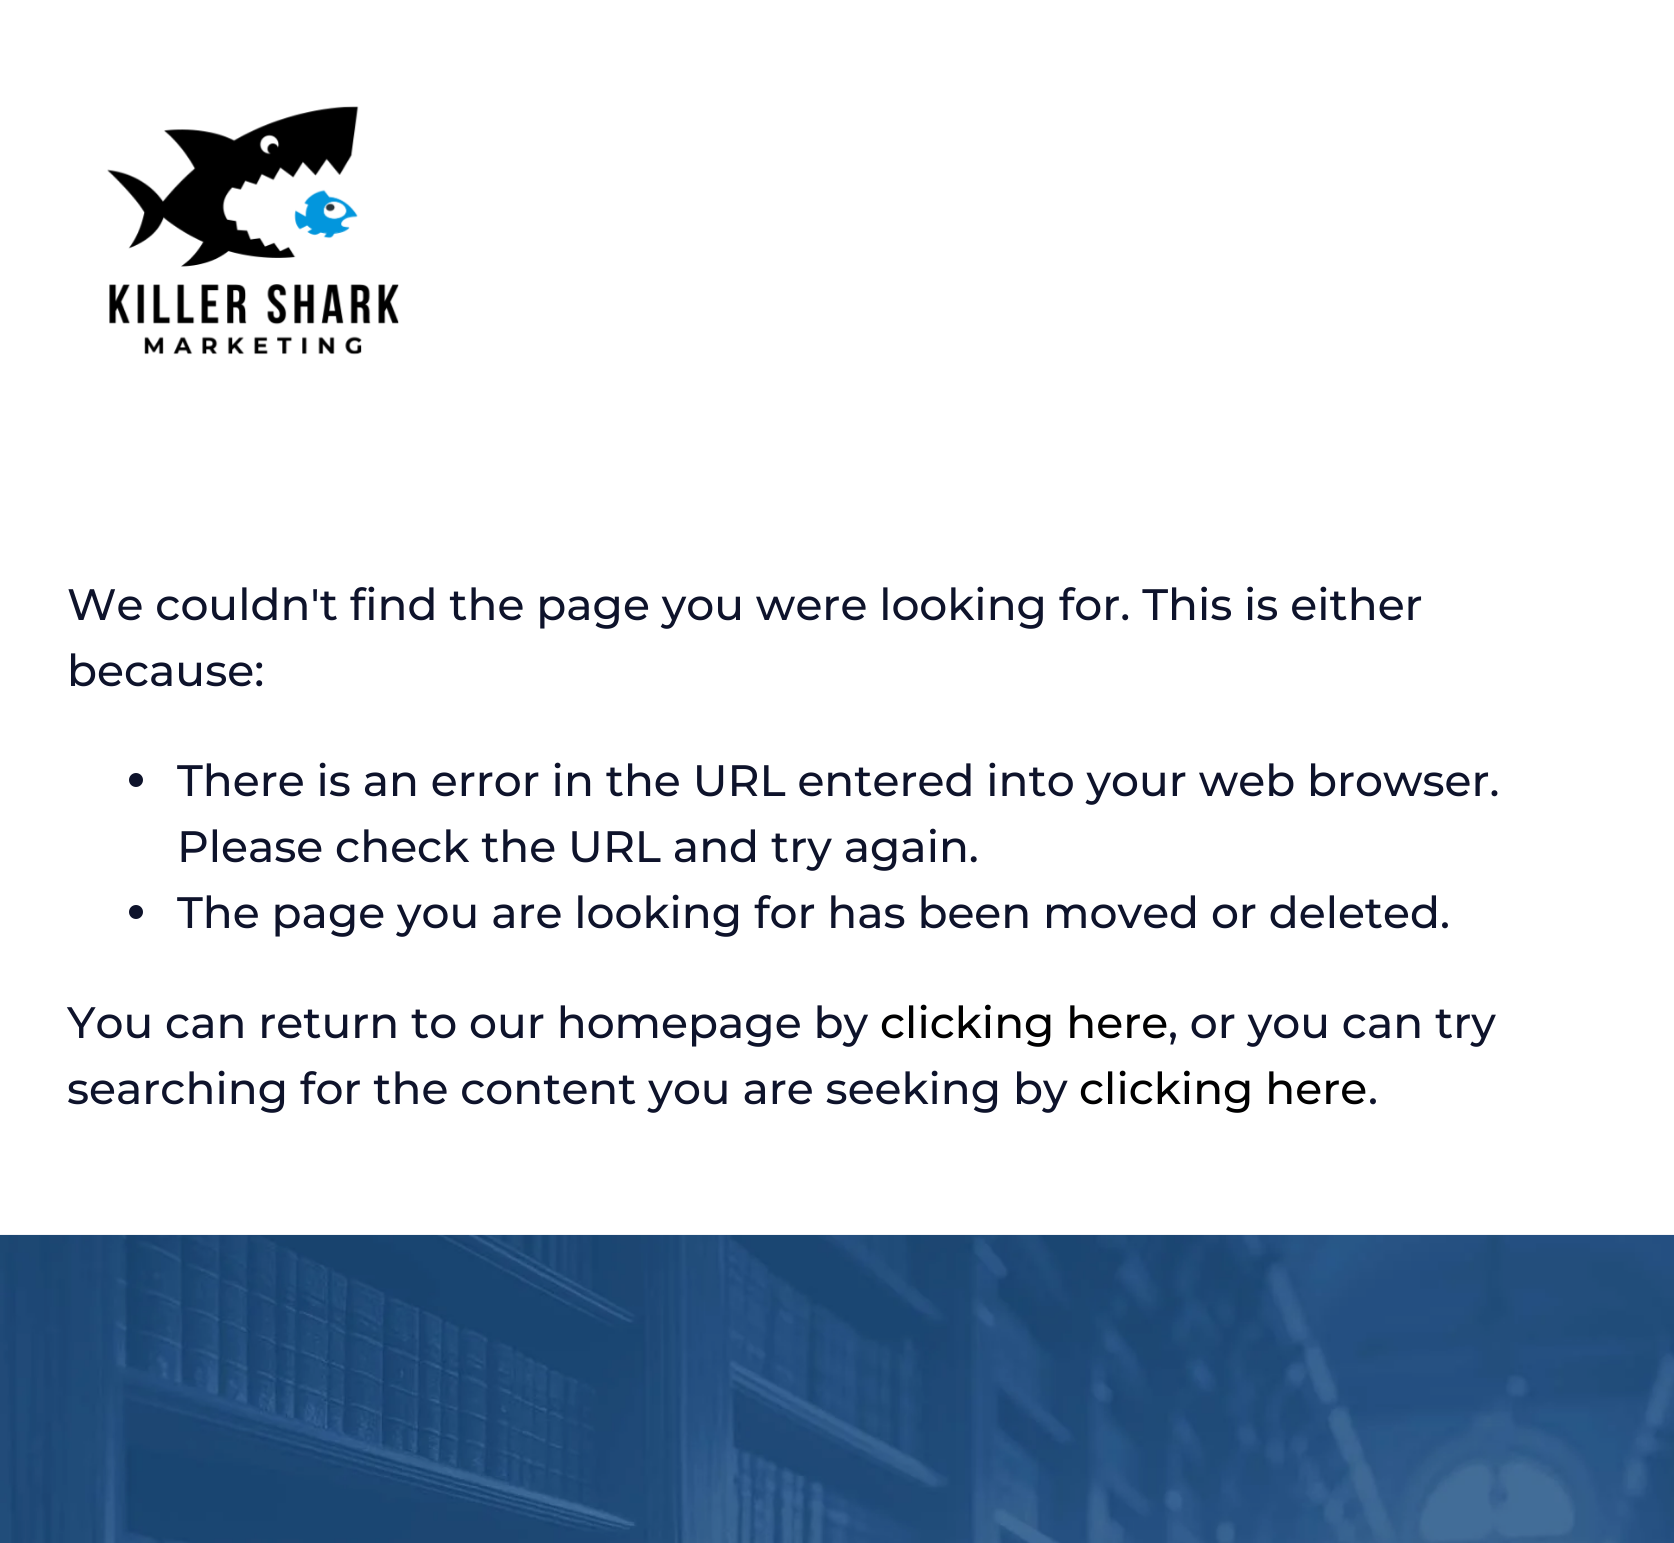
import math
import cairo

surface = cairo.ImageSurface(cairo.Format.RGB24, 1674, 1543)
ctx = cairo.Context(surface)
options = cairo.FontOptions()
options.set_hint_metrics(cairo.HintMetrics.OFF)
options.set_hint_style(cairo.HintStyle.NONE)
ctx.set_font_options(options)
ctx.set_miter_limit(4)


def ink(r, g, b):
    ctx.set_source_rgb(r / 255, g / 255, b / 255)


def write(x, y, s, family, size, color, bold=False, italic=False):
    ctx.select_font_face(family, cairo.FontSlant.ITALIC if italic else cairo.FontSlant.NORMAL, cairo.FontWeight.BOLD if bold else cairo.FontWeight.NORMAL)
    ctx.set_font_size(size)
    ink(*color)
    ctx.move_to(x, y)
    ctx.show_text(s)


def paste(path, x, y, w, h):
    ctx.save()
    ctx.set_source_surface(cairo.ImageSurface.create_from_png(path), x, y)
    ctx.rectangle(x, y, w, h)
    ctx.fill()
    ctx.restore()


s1 = dict(family="Montserrat Medium", size=44, color=(14, 19, 43))
s2 = dict(family="Montserrat Medium", size=44, color=(0, 0, 0))

ink(255, 255, 255)
ctx.paint()
paste("pic1.png", 107, 106, 292, 249)
write(67, 620, "We couldn't find the page you were looking for. This is either", **s1)
write(67, 686, "because:", **s1)
ctx.new_path()
ctx.arc(136, 780, 7, 0, 2 * math.pi)
ctx.fill()
write(177, 796, "There is an error in the URL entered into your web browser.", **s1)
write(177, 862, "Please check the URL and try again.", **s1)
ctx.new_path()
ctx.arc(136, 912, 7, 0, 2 * math.pi)
ctx.fill()
write(177, 928, "The page you are looking for has been moved or deleted.", **s1)
write(67, 1038, "You can return to our homepage by", **s1)
write(880, 1038, "clicking here", **s2)
write(1168, 1038, ", or you can try", **s1)
write(67, 1104, "searching for the content you are seeking by", **s1)
write(1079, 1104, "clicking here", **s2)
write(1368, 1104, ".", **s1)
paste("pic2.png", 0, 1234, 1674, 309)
surface.write_to_png("screenshot.png")
